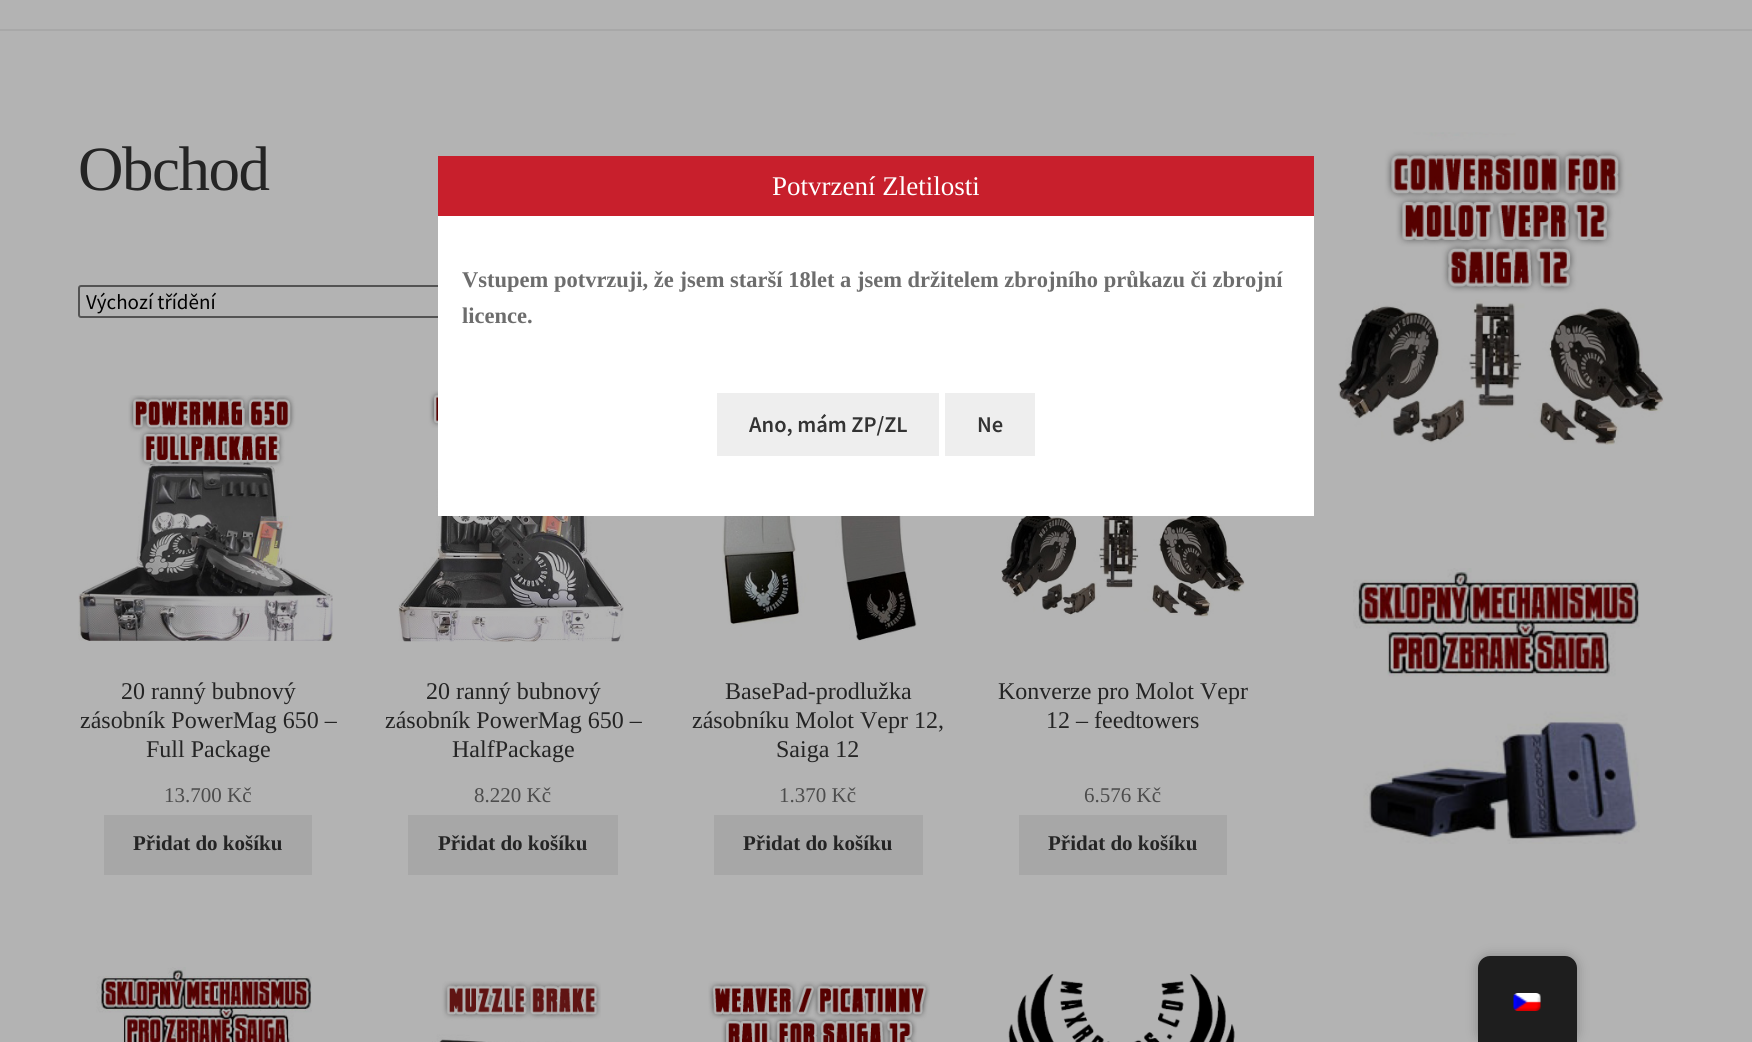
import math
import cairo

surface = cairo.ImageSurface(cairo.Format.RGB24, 1752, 1042)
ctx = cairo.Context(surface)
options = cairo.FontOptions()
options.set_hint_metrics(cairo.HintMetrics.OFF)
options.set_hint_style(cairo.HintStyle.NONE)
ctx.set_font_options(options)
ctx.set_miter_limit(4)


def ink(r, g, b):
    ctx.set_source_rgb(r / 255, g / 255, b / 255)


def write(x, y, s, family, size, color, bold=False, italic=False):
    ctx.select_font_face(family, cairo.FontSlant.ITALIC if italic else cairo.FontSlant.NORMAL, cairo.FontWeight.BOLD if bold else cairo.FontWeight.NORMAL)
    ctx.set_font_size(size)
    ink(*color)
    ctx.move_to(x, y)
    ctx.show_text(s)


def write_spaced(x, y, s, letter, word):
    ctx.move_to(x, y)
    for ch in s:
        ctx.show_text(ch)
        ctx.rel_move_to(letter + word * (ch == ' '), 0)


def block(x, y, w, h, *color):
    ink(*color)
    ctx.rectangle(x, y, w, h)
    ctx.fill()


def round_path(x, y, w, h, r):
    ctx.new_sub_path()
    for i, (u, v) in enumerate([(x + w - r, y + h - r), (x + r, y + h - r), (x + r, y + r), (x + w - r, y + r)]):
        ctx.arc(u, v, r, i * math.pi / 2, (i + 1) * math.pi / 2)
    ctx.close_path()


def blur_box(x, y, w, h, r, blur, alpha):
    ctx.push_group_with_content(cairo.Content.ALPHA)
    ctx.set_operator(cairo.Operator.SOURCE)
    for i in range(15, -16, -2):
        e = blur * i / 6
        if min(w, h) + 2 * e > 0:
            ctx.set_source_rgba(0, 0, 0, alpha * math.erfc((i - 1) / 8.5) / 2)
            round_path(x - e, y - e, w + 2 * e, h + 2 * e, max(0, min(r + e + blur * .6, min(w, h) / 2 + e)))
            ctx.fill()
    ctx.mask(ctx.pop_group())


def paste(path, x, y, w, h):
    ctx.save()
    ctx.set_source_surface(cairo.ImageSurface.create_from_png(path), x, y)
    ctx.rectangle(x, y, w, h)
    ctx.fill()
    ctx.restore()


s1 = dict(family="Source Sans Pro", size=21, color=(0, 0, 0))
s2 = dict(family="Liberation Serif", size=24, color=(36, 36, 36))
s3 = dict(family="Liberation Serif", size=21, color=(76, 76, 76))
s4 = dict(family="Liberation Serif", size=21, color=(36, 36, 36), bold=True)
s5 = dict(family="Liberation Serif", size=27, color=(255, 255, 255))
s6 = dict(family="Liberation Serif", size=22.5, color=(109, 109, 109), bold=True)
s7 = dict(family="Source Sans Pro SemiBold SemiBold", size=22.5, color=(51, 51, 51))

ink(179, 179, 179)
ctx.paint()
block(0, 29, 1752, 2, 168, 168, 168)
ctx.select_font_face("Liberation Serif")
ctx.set_font_size(63)
ink(36, 36, 36)
write_spaced(78, 190, "Obchod", -1.5, 0)
round_path(79, 286, 387, 31, 2)
ink(83, 83, 83)
ctx.stroke()
write(86, 309, "Výchozí třídění", **s1)
paste("pic1.png", 78, 395, 255, 246)
write(121, 699, "20 ranný bubnový", **s2)
write(80, 728, "zásobník PowerMag 650 –", **s2)
write(146, 757, "Full Package", **s2)
write(164, 802, "13.700 Kč", **s3)
block(104, 815, 208, 60, 167, 167, 167)
write(133, 850, "Přidat do košíku", **s4)
paste("pic2.png", 398, 390, 226, 252)
write(426, 699, "20 ranný bubnový", **s2)
write(385, 728, "zásobník PowerMag 650 –", **s2)
write(452, 757, "HalfPackage", **s2)
write(474, 802, "8.220 Kč", **s3)
block(408, 815, 210, 60, 167, 167, 167)
write(438, 850, "Přidat do košíku", **s4)
paste("pic3.png", 722, 516, 195, 125)
write(725, 699, "BasePad-prodlužka", **s2)
write(692, 728, "zásobníku Molot Vepr 12,", **s2)
write(776, 757, "Saiga 12", **s2)
write(779, 802, "1.370 Kč", **s3)
block(714, 815, 209, 60, 167, 167, 167)
write(743, 850, "Přidat do košíku", **s4)
paste("pic4.png", 1001, 516, 244, 101)
write(998, 699, "Konverze pro Molot Vepr", **s2)
write(1046, 728, "12 – feedtowers", **s2)
write(1084, 802, "6.576 Kč", **s3)
block(1019, 815, 208, 60, 167, 167, 167)
write(1048, 850, "Přidat do košíku", **s4)
paste("pic5.png", 96, 967, 216, 75)
paste("pic6.png", 432, 981, 169, 61)
paste("pic7.png", 708, 981, 222, 61)
paste("pic8.png", 1008, 974, 227, 68)
paste("pic9.png", 1338, 132, 326, 313)
paste("pic10.png", 1353, 568, 287, 276)
block(438, 216, 876, 300, 255, 255, 255)
block(438, 156, 876, 60, 200, 31, 44)
write(772, 195, "Potvrzení Zletilosti", **s5)
write(462, 287, "Vstupem potvrzuji, že jsem starší 18let a jsem držitelem zbrojního průkazu či zbrojní", **s6)
write(462, 323, "licence.", **s6)
block(717, 393, 222, 63, 238, 238, 238)
write(749, 432, "Ano, mám ZP/ZL", **s7)
block(945, 393, 90, 63, 238, 238, 238)
write(977, 432, "Ne", **s7)
ink(0, 0, 0)
blur_box(1478, 956, 99, 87, 12, 6, 0.25)
ink(30, 30, 30)
ctx.new_path()
ctx.move_to(1490, 956)
ctx.line_to(1565, 956)
ctx.curve_to(1571.5, 956, 1577, 961.5, 1577, 968)
ctx.line_to(1577, 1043)
ctx.line_to(1478, 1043)
ctx.line_to(1478, 968)
ctx.curve_to(1478, 961.5, 1483.5, 956, 1490, 956)
ctx.close_path()
ctx.fill()
paste("pic11.png", 1513, 993, 28, 18)
surface.write_to_png("screenshot.png")
